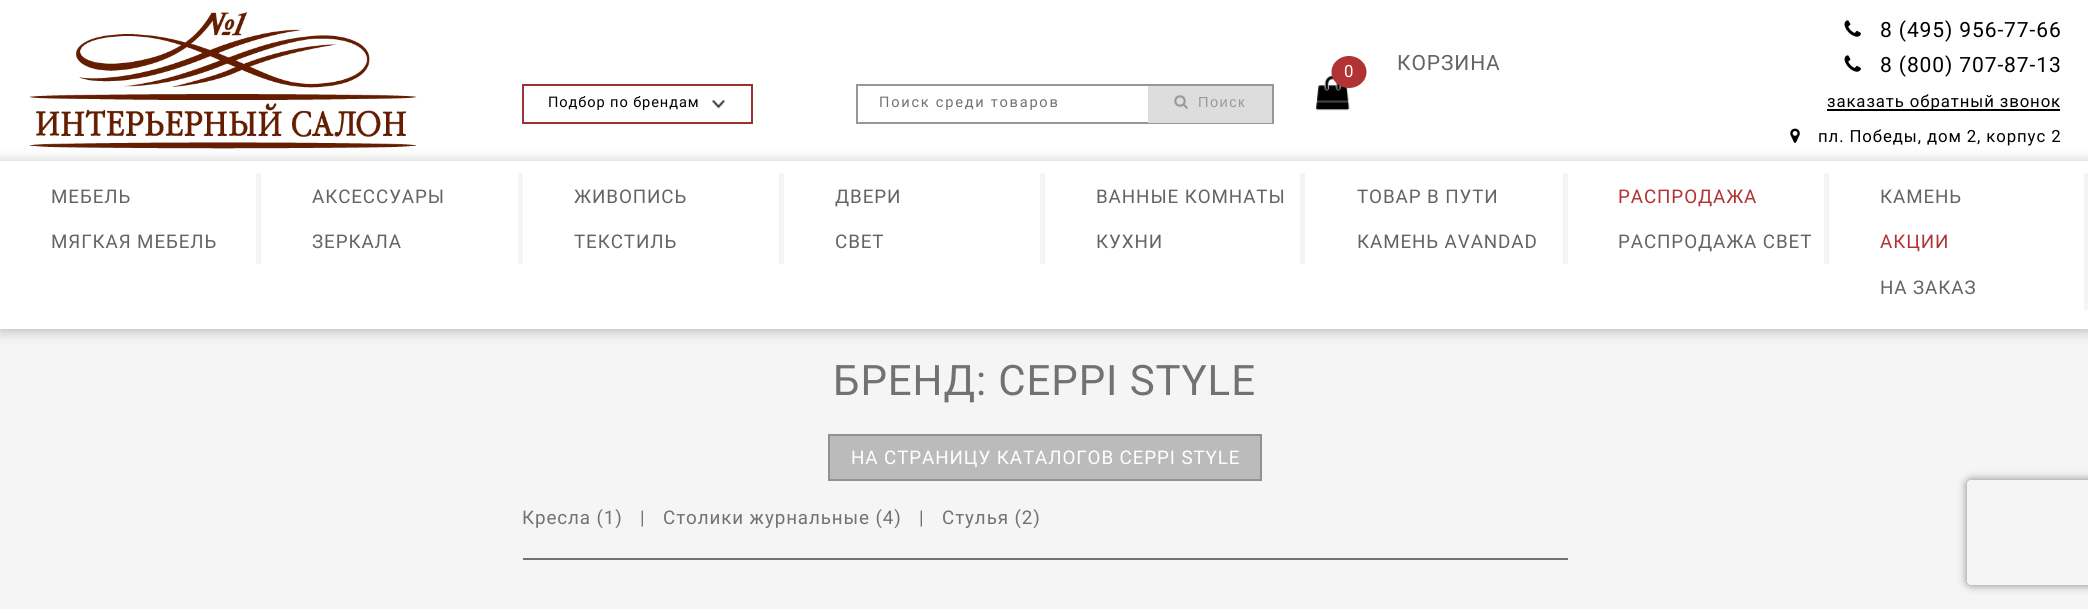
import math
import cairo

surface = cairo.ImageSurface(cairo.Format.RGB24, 2088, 609)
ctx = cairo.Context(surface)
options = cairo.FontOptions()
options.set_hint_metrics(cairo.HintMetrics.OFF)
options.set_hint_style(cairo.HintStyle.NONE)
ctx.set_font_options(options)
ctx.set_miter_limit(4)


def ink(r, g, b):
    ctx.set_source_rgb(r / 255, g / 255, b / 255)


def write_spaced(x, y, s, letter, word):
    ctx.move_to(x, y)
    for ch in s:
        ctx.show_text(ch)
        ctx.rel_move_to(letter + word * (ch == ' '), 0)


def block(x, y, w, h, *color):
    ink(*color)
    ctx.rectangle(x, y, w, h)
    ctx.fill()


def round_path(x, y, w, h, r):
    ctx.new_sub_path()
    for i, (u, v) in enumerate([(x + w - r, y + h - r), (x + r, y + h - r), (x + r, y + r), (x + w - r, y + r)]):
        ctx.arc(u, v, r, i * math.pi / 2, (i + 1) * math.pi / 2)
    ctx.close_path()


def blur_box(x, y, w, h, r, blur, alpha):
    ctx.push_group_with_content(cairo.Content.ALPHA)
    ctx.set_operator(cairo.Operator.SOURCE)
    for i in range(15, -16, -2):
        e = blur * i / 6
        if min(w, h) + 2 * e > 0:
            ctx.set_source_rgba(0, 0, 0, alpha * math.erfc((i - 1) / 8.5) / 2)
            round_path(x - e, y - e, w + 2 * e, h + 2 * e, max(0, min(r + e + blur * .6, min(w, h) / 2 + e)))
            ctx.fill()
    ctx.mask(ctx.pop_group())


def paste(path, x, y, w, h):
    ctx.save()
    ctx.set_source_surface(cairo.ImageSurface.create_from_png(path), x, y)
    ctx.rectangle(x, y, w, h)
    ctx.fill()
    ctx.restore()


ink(245, 245, 245)
ctx.paint()
block(0, 0, 2088, 161, 255, 255, 255)
paste("pic1.png", 29, 12, 388, 137)
paste("pic2.png", 1316, 75, 34, 36)
ink(178, 51, 52)
ctx.new_path()
ctx.move_to(1349, 56)
ctx.curve_to(1358.5, 56, 1366.5, 63, 1366.5, 72)
ctx.curve_to(1366.5, 81, 1358.5, 88, 1349, 88)
ctx.curve_to(1339.5, 88, 1331.5, 81, 1331.5, 72)
ctx.curve_to(1331.5, 63, 1339.5, 56, 1349, 56)
ctx.close_path()
ctx.fill()
ctx.select_font_face("Roboto")
ctx.set_font_size(16.75)
ink(255, 255, 255)
write_spaced(1344, 77, "0", 0.9, 0)
ctx.set_font_size(21)
ink(100, 100, 100)
write_spaced(1397, 70, "КОРЗИНА", 0.9, 0)
paste("pic3.png", 1844, 20, 17, 17)
ink(0, 0, 0)
write_spaced(1880, 37, "8 (495) 956-77-66", 0.9, 0)
paste("pic3.png", 1844, 55, 17, 17)
write_spaced(1880, 72, "8 (800) 707-87-13", 0.9, 0)
block(1827, 109, 233, 2, 0, 0, 0)
ctx.set_font_size(16.75)
write_spaced(1827, 107, "заказать обратный звонок", 0.9, 0)
paste("pic4.png", 1790, 128, 10, 15)
write_spaced(1818, 142, "пл. Победы, дом 2, корпус 2", 0.9, 0)
ctx.rectangle(523, 85, 229, 38)
ink(153, 51, 51)
ctx.stroke()
ctx.set_font_size(14.6)
ink(0, 0, 0)
write_spaced(548, 107, "Подбор по брендам", 0.9, 0)
paste("pic5.png", 712, 100, 13, 9)
ctx.rectangle(857, 85, 416, 38)
ink(151, 151, 151)
ctx.stroke()
ink(114, 114, 114)
write_spaced(879, 107, "Поиск среди товаров", 1.75, 0)
block(1148, 86, 124, 37, 221, 221, 221)
paste("pic6.png", 1174, 95, 14, 14)
ctx.select_font_face("Liberation Sans")
ink(153, 153, 153)
write_spaced(1198, 107, "Поиск", 1.5, 0)
ink(186, 186, 186)
blur_box(0, 163, 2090, 168, 0, 7, 1)
block(0, 161, 2088, 168, 255, 255, 255)
block(256, 173, 5, 91, 245, 245, 245)
ctx.select_font_face("Roboto")
ctx.set_font_size(18.8)
ink(100, 100, 100)
write_spaced(51, 203, "МЕБЕЛЬ", 0.9, 0)
write_spaced(51, 248, "МЯГКАЯ МЕБЕЛЬ", 0.9, 0)
block(518, 173, 5, 91, 245, 245, 245)
ink(100, 100, 100)
write_spaced(312, 203, "АКСЕССУАРЫ", 0.9, 0)
write_spaced(312, 248, "ЗЕРКАЛА", 0.9, 0)
block(779, 173, 5, 91, 245, 245, 245)
ink(100, 100, 100)
write_spaced(574, 203, "ЖИВОПИСЬ", 0.9, 0)
write_spaced(574, 248, "ТЕКСТИЛЬ", 0.9, 0)
block(1040, 173, 5, 91, 245, 245, 245)
ink(100, 100, 100)
write_spaced(835, 203, "ДВЕРИ", 0.9, 0)
write_spaced(835, 248, "СВЕТ", 0.9, 0)
block(1300, 173, 5, 91, 245, 245, 245)
ink(100, 100, 100)
write_spaced(1096, 203, "ВАННЫЕ КОМНАТЫ", 0.9, 0)
write_spaced(1096, 248, "КУХНИ", 0.9, 0)
block(1563, 173, 5, 91, 245, 245, 245)
ink(100, 100, 100)
write_spaced(1357, 203, "ТОВАР В ПУТИ", 0.9, 0)
write_spaced(1357, 248, "КАМЕНЬ AVANDAD", 0.9, 0)
block(1824, 173, 5, 91, 245, 245, 245)
ink(178, 51, 52)
write_spaced(1618, 203, "РАСПРОДАЖА", 0.9, 0)
ink(100, 100, 100)
write_spaced(1618, 248, "РАСПРОДАЖА СВЕТ", 0.9, 0)
block(2084, 173, 4, 137, 245, 245, 245)
ink(100, 100, 100)
write_spaced(1880, 203, "КАМЕНЬ", 0.9, 0)
ink(178, 51, 52)
write_spaced(1880, 248, "АКЦИИ", 0.9, 0)
ink(100, 100, 100)
write_spaced(1880, 294, "НА ЗАКАЗ", 0.9, 0)
ctx.set_font_size(42)
ink(114, 114, 114)
write_spaced(833, 395, "БРЕНД: CEPPI STYLE", 0.9, 0)
ink(187, 187, 187)
ctx.rectangle(829, 435, 432, 45)
ctx.fill_preserve()
ink(145, 145, 145)
ctx.stroke()
ctx.set_font_size(18.8)
ink(255, 255, 255)
write_spaced(851, 464, "НА СТРАНИЦУ КАТАЛОГОВ CEPPI STYLE", 0.9, 0)
block(523, 558, 1045, 2, 114, 114, 114)
write_spaced(522, 524, "Кресла (1)", 0.9, 0)
write_spaced(640, 524, "|", 0.9, 0)
write_spaced(663, 524, "Столики журнальные (4)", 0.9, 0)
write_spaced(919, 524, "|", 0.9, 0)
write_spaced(942, 524, "Стулья (2)", 0.9, 0)
ctx.save()
ctx.set_fill_rule(cairo.FillRule.EVEN_ODD)
ctx.new_path()
ctx.move_to(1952, 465)
ctx.line_to(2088, 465)
ctx.line_to(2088, 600)
ctx.line_to(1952, 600)
ctx.close_path()
ctx.move_to(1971, 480)
ctx.line_to(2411, 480)
ctx.curve_to(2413, 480, 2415, 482, 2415, 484)
ctx.line_to(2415, 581)
ctx.curve_to(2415, 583, 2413, 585, 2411, 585)
ctx.line_to(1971, 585)
ctx.curve_to(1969, 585, 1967, 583, 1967, 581)
ctx.line_to(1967, 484)
ctx.curve_to(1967, 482, 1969, 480, 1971, 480)
ctx.close_path()
ctx.clip()
ink(128, 128, 128)
blur_box(1967, 480, 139, 105, 4, 4.5, 1)
ctx.restore()
surface.write_to_png("screenshot.png")
